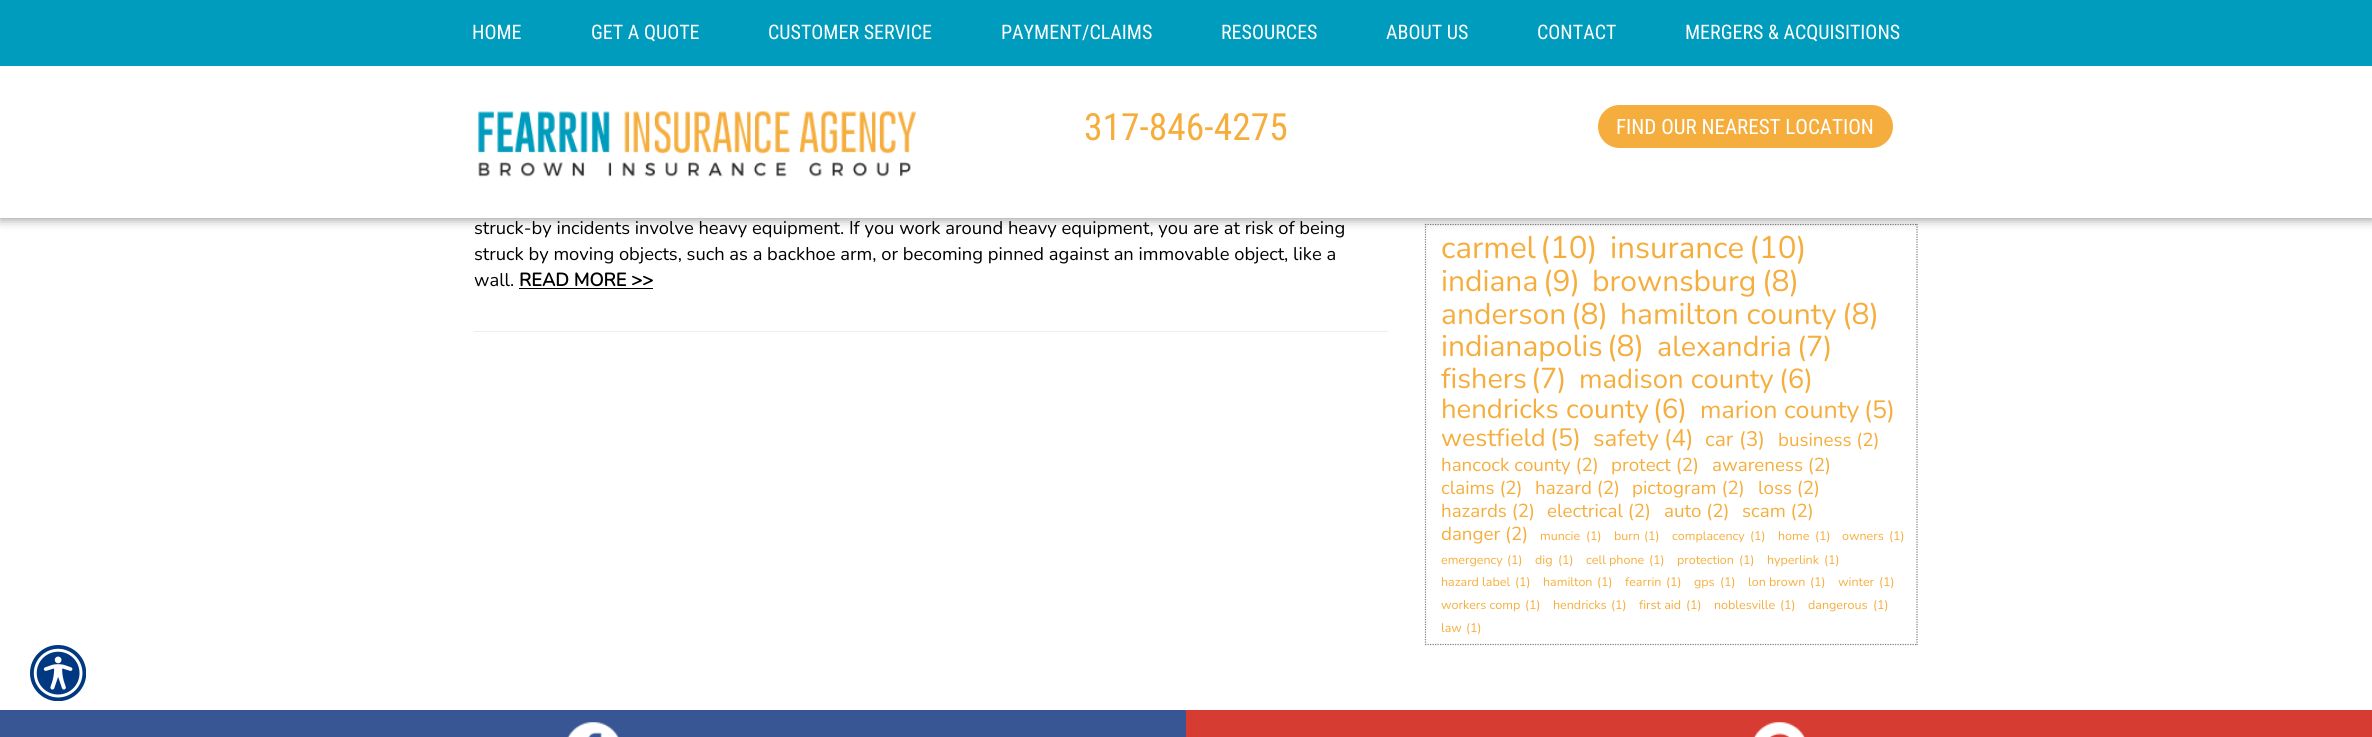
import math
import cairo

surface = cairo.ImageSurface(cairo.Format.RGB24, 2372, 737)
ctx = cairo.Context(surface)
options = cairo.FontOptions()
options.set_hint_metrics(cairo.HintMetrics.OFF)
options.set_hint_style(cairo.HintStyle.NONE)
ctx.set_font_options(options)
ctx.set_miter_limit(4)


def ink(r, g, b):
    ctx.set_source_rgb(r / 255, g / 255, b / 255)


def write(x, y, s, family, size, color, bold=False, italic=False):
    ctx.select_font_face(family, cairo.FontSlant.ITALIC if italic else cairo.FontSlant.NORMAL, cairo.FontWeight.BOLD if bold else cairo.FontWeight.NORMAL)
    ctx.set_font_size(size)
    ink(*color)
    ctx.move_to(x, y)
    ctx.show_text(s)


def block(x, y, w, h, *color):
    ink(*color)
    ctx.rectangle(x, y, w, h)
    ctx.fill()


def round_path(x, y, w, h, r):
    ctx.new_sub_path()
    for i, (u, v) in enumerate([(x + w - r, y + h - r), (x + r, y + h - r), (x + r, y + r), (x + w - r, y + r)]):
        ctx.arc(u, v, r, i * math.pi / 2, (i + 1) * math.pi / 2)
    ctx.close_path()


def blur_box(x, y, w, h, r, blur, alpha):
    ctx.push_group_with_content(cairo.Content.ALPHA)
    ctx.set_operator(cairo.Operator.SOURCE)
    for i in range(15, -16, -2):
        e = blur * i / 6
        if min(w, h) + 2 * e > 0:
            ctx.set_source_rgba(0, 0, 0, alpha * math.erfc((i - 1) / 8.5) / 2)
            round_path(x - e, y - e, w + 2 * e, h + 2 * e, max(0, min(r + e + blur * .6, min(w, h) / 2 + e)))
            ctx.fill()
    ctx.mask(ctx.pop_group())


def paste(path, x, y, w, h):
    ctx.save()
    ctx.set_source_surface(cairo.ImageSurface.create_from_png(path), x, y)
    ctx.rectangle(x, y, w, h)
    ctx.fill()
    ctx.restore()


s1 = dict(family="Roboto Condensed", size=20, color=(255, 255, 255))
s2 = dict(family="Roboto Condensed", size=37.5, color=(245, 174, 61))
s3 = dict(family="Roboto Condensed", size=21, color=(255, 255, 255))
s4 = dict(family="Nunito ExtraLight", size=18.35, color=(0, 0, 0))
s5 = dict(family="Nunito", size=18.35, color=(0, 0, 0), bold=True)
s6 = dict(family="Nunito ExtraLight", size=31.25, color=(245, 174, 61))
s7 = dict(family="Nunito ExtraLight", size=30, color=(245, 174, 61))
s8 = dict(family="Nunito ExtraLight", size=28.75, color=(245, 174, 61))
s9 = dict(family="Nunito ExtraLight", size=27.5, color=(245, 174, 61))
s10 = dict(family="Nunito ExtraLight", size=25, color=(245, 174, 61))
s11 = dict(family="Nunito ExtraLight", size=24, color=(245, 174, 61))
s12 = dict(family="Nunito ExtraLight", size=21, color=(245, 174, 61))
s13 = dict(family="Nunito ExtraLight", size=18.75, color=(245, 174, 61))
s14 = dict(family="Nunito ExtraLight", size=12.5, color=(245, 174, 61))

ink(255, 255, 255)
ctx.paint()
ctx.new_path()
ctx.move_to(1425, 224.5)
ctx.line_to(1917.5, 224.5)
ink(127, 127, 127)
ctx.set_line_width(1.2)
ctx.set_dash([1.25, 1.25])
ctx.stroke()
ctx.new_path()
ctx.move_to(1917, 224)
ctx.line_to(1917, 645)
ctx.stroke()
ctx.new_path()
ctx.move_to(1425, 644.5)
ctx.line_to(1917.5, 644.5)
ctx.stroke()
ctx.new_path()
ctx.move_to(1425.5, 224)
ctx.line_to(1425.5, 645)
ctx.stroke()
ink(0, 0, 0)
blur_box(0, 0, 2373, 218, 0, 6, 0.5)
block(0, 66, 2372, 152, 255, 255, 255)
block(0, 0, 2372, 66, 0, 156, 189)
write(472, 39, "HOME", **s1)
write(591, 39, "GET A QUOTE", **s1)
write(768, 39, "CUSTOMER SERVICE", **s1)
write(1001, 39, "PAYMENT/CLAIMS", **s1)
write(1221, 39, "RESOURCES", **s1)
write(1386, 39, "ABOUT US", **s1)
write(1537, 39, "CONTACT", **s1)
write(1685, 39, "MERGERS & ACQUISITIONS", **s1)
paste("pic1.png", 478, 111, 438, 66)
write(1084, 140, "317-846-4275", **s2)
round_path(1598, 105, 295, 43, 21.5)
ctx.fill()
write(1616, 134, "FIND OUR NEAREST LOCATION", **s3)
write(474, 234, "struck-by incidents involve heavy equipment. If you work around heavy equipment, you are at risk of being", **s4)
write(474, 260, "struck by moving objects, such as a backhoe arm, or becoming pinned against an immovable object, like a", **s4)
write(474, 286, "wall.", **s4)
write(519, 286, "READ MORE >>", **s5)
block(519, 288, 134, 1, 0, 0, 0)
block(474, 331, 914, 1, 238, 238, 238)
write(1441, 258, "carmel", **s6)
write(1540, 258, "(10)", **s6)
write(1610, 258, "insurance", **s6)
write(1749, 258, "(10)", **s6)
write(1441, 291, "indiana", **s7)
write(1543, 291, "(9)", **s7)
write(1592, 291, "brownsburg", **s7)
write(1762, 291, "(8)", **s7)
write(1441, 324, "anderson", **s7)
write(1571, 324, "(8)", **s7)
write(1620, 324, "hamilton county", **s7)
write(1842, 324, "(8)", **s7)
write(1441, 356, "indianapolis", **s7)
write(1607, 356, "(8)", **s7)
write(1657, 356, "alexandria", **s8)
write(1797, 356, "(7)", **s8)
write(1441, 388, "fishers", **s8)
write(1531, 388, "(7)", **s8)
write(1579, 388, "madison county", **s9)
write(1779, 388, "(6)", **s9)
write(1441, 418, "hendricks county", **s9)
write(1653, 418, "(6)", **s9)
write(1700, 418, "marion county", **s10)
write(1864, 418, "(5)", **s10)
write(1441, 446, "westfield", **s10)
write(1550, 446, "(5)", **s10)
write(1593, 446, "safety", **s11)
write(1664, 446, "(4)", **s11)
write(1705, 446, "car", **s12)
write(1739, 446, "(3)", **s12)
write(1778, 446, "business (2)", **s13)
write(1441, 471, "hancock county (2)", **s13)
write(1611, 471, "protect (2)", **s13)
write(1712, 471, "awareness (2)", **s13)
write(1441, 494, "claims (2)", **s13)
write(1535, 494, "hazard (2)", **s13)
write(1632, 494, "pictogram (2)", **s13)
write(1758, 494, "loss (2)", **s13)
write(1441, 517, "hazards (2)", **s13)
write(1547, 517, "electrical (2)", **s13)
write(1664, 517, "auto (2)", **s13)
write(1742, 517, "scam (2)", **s13)
write(1441, 540, "danger (2)", **s13)
write(1540, 540, "muncie", **s14)
write(1586, 540, "(1)", **s14)
write(1614, 540, "burn", **s14)
write(1644, 540, "(1)", **s14)
write(1672, 540, "complacency", **s14)
write(1750, 540, "(1)", **s14)
write(1778, 540, "home", **s14)
write(1815, 540, "(1)", **s14)
write(1842, 540, "owners", **s14)
write(1889, 540, "(1)", **s14)
write(1441, 564, "emergency", **s14)
write(1507, 564, "(1)", **s14)
write(1535, 564, "dig", **s14)
write(1558, 564, "(1)", **s14)
write(1586, 564, "cell phone", **s14)
write(1649, 564, "(1)", **s14)
write(1677, 564, "protection", **s14)
write(1739, 564, "(1)", **s14)
write(1767, 564, "hyperlink", **s14)
write(1824, 564, "(1)", **s14)
write(1441, 586, "hazard label", **s14)
write(1515, 586, "(1)", **s14)
write(1543, 586, "hamilton", **s14)
write(1597, 586, "(1)", **s14)
write(1625, 586, "fearrin", **s14)
write(1666, 586, "(1)", **s14)
write(1694, 586, "gps", **s14)
write(1720, 586, "(1)", **s14)
write(1748, 586, "lon brown", **s14)
write(1810, 586, "(1)", **s14)
write(1838, 586, "winter", **s14)
write(1879, 586, "(1)", **s14)
write(1441, 609, "workers comp", **s14)
write(1525, 609, "(1)", **s14)
write(1553, 609, "hendricks", **s14)
write(1611, 609, "(1)", **s14)
write(1639, 609, "first aid", **s14)
write(1686, 609, "(1)", **s14)
write(1714, 609, "noblesville", **s14)
write(1780, 609, "(1)", **s14)
write(1808, 609, "dangerous", **s14)
write(1873, 609, "(1)", **s14)
write(1441, 632, "law", **s14)
write(1466, 632, "(1)", **s14)
block(0, 710, 1186, 27, 55, 86, 147)
paste("pic2.png", 567, 722, 52, 15)
block(1186, 710, 1186, 27, 214, 60, 49)
paste("pic3.png", 1753, 722, 52, 15)
paste("pic4.png", 30, 645, 56, 56)
surface.write_to_png("screenshot.png")
